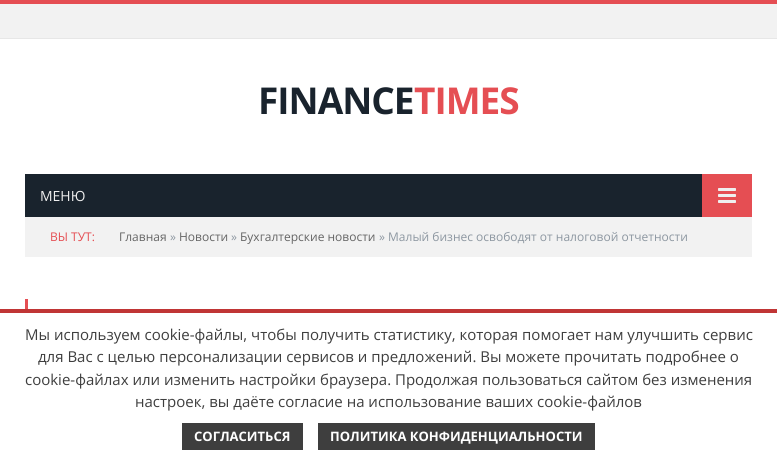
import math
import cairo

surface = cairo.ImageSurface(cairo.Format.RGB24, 777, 464)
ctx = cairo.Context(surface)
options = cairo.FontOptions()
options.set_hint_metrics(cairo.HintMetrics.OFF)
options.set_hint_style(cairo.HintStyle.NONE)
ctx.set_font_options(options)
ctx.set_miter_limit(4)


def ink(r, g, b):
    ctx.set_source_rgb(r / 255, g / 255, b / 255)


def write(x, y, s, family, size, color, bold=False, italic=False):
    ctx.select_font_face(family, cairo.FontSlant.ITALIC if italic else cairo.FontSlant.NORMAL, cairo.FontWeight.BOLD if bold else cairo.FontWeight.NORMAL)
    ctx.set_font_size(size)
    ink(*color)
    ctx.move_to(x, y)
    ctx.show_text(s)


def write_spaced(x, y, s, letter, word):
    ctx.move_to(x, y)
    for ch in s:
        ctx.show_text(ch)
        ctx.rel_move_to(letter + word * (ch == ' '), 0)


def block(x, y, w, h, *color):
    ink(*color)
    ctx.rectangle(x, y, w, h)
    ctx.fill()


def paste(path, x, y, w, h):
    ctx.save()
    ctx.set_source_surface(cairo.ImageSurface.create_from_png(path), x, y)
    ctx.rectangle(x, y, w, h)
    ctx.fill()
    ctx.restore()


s1 = dict(family="Open Sans", size=14, color=(239, 239, 239))
s2 = dict(family="Open Sans", size=12, color=(229, 78, 83))
s3 = dict(family="Open Sans", size=12, color=(101, 101, 101))
s4 = dict(family="Open Sans", size=12, color=(141, 151, 161))
s5 = dict(family="Open Sans", size=15, color=(62, 62, 62))
s6 = dict(family="Open Sans", size=13, color=(255, 255, 255), bold=True)

ink(255, 255, 255)
ctx.paint()
block(0, 4, 777, 34, 242, 242, 242)
block(0, 0, 777, 4, 229, 78, 83)
block(0, 38, 777, 1, 231, 231, 231)
ctx.select_font_face("Open Sans", cairo.FontSlant.NORMAL, cairo.FontWeight.BOLD)
ctx.set_font_size(37)
ink(25, 35, 45)
write_spaced(258, 114, "FINANCE", -1, 0)
ink(229, 78, 83)
write_spaced(414, 114, "TIMES", -1, 0)
block(25, 174, 677, 43, 25, 35, 45)
write(40, 201, "МЕНЮ", **s1)
block(702, 174, 50, 43, 229, 78, 83)
paste("pic1.png", 718, 188, 18, 15)
block(25, 217, 727, 40, 242, 242, 242)
write(50, 241, "ВЫ ТУТ:", **s2)
write(119, 241, "Главная", **s3)
write(170, 241, "»", **s4)
write(179, 241, "Новости", **s3)
write(231, 241, "»", **s4)
write(240, 241, "Бухгалтерские новости", **s3)
write(379, 241, "» Малый бизнес освободят от налоговой отчетности", **s4)
block(25, 299, 3, 10, 229, 78, 83)
block(0, 309, 777, 4, 192, 53, 53)
write(25, 340, "Мы используем cookie-файлы, чтобы получить статистику, которая помогает нам улучшить сервис", **s5)
write(38, 362, "для Вас с целью персонализации сервисов и предложений. Вы можете прочитать подробнее о", **s5)
write(25, 385, "cookie-файлах или изменить настройки браузера. Продолжая пользоваться сайтом без изменения", **s5)
write(135, 407, "настроек, вы даёте согласие на использование ваших cookie-файлов", **s5)
block(182, 423, 121, 27, 62, 62, 62)
write(194, 441, "СОГЛАСИТЬСЯ", **s6)
block(318, 423, 277, 27, 62, 62, 62)
write(330, 441, "ПОЛИТИКА КОНФИДЕНЦИАЛЬНОСТИ", **s6)
surface.write_to_png("screenshot.png")
